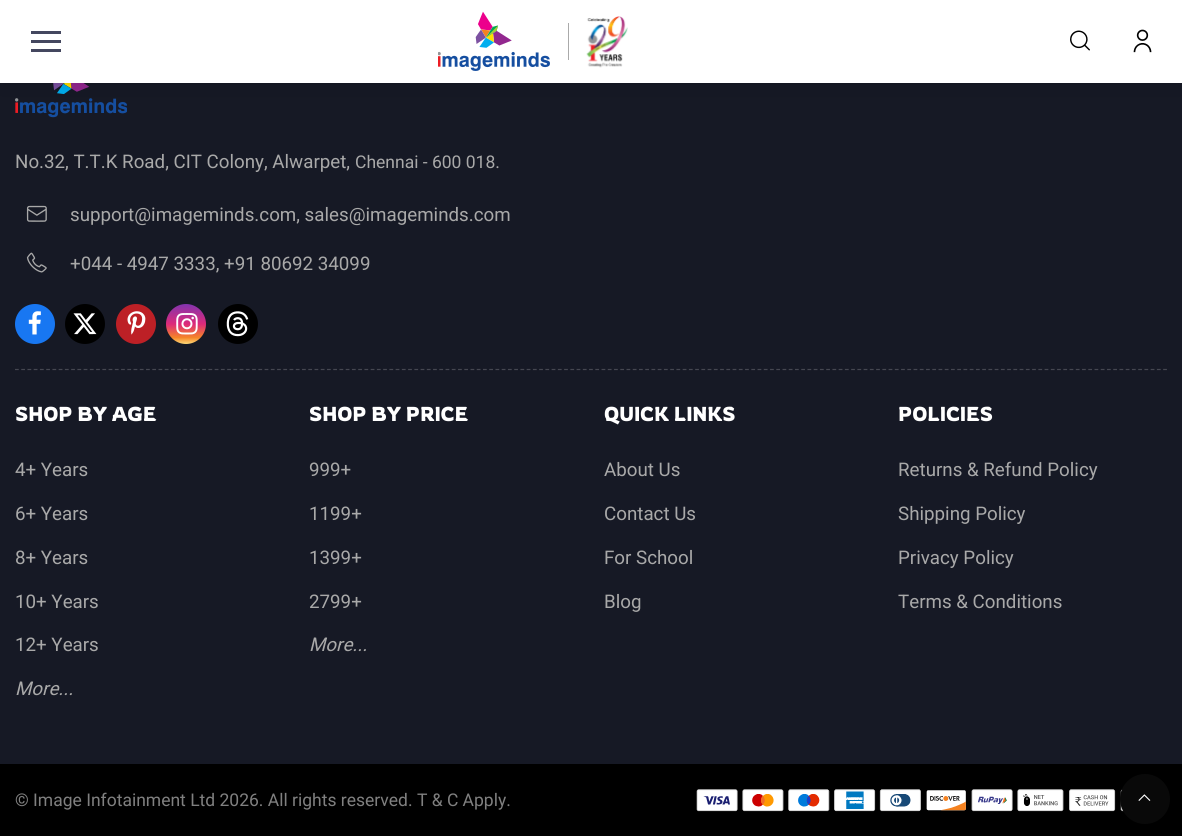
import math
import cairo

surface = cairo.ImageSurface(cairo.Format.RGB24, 1182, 836)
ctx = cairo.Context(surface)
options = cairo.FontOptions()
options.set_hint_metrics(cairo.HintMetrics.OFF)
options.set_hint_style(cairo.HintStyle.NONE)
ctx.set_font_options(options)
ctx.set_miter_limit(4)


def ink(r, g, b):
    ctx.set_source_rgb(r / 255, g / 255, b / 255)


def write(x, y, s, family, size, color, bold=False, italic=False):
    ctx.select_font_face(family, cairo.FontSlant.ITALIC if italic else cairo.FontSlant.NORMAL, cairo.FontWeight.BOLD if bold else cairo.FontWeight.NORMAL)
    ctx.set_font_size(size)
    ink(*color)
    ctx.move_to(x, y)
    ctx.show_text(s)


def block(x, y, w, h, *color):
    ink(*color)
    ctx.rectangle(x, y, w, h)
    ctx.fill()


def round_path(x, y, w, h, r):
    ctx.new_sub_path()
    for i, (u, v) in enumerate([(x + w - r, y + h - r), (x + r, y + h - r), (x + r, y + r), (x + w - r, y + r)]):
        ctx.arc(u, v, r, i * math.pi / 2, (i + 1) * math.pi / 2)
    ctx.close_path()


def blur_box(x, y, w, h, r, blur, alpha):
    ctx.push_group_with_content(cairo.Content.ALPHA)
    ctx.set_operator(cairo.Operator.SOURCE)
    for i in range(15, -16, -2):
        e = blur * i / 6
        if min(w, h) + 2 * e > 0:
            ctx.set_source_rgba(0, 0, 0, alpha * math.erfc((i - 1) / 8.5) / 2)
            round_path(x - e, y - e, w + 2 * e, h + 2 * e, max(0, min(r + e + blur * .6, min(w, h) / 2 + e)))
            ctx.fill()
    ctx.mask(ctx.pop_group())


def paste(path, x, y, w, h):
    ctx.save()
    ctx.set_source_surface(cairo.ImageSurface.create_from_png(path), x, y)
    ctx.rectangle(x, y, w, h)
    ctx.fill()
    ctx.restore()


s1 = dict(family="Roboto", size=18.75, color=(169, 169, 169))
s2 = dict(family="Roboto", size=17.5, color=(169, 169, 169))
s3 = dict(family="Rowdies", size=20, color=(255, 255, 255))
s4 = dict(family="Roboto", size=18.75, color=(169, 169, 169), italic=True)
s5 = dict(family="Roboto", size=17.5, color=(128, 128, 128))

ink(22, 25, 37)
ctx.paint()
paste("pic5.png", 15, 83, 112, 35)
ink(0, 0, 0)
blur_box(0, 0, 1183, 83, 0, 12.5, 0.15)
block(0, 0, 1182, 83, 255, 255, 255)
block(31, 40, 30, 3, 68, 71, 95)
block(31, 31, 30, 3, 68, 71, 95)
block(31, 49, 30, 3, 68, 71, 95)
paste("pic1.png", 438, 11, 112, 60)
block(568, 23, 1, 37, 170, 170, 170)
paste("pic2.png", 586, 16, 42, 52)
paste("pic3.png", 1070, 30, 20, 21)
paste("pic4.png", 1133, 29, 19, 24)
ctx.new_path()
ctx.move_to(15, 369.5)
ctx.line_to(1167.5, 369.5)
ink(69, 71, 81)
ctx.set_line_width(1.2)
ctx.set_dash([3.75, 2.49])
ctx.stroke()
write(15, 168, "No.32, T.T.K Road, CIT Colony, Alwarpet,", **s1)
write(355, 168, "Chennai - 600 018.", **s2)
paste("pic6.png", 26, 205, 21, 17)
write(70, 221, "support@imageminds.com, sales@imageminds.com", **s1)
paste("pic7.png", 26, 252, 21, 21)
write(70, 270, "+044 - 4947 3333, +91 80692 34099", **s1)
ink(24, 119, 242)
ctx.new_path()
ctx.arc(35, 324, 20, 0, 2 * math.pi)
ctx.fill()
paste("pic8.png", 28, 311, 13, 24)
ink(0, 0, 0)
ctx.arc(85, 324, 20, 0, 2 * math.pi)
ctx.fill()
paste("pic9.png", 73, 313, 24, 22)
ink(189, 32, 38)
ctx.arc(136, 324, 20, 0, 2 * math.pi)
ctx.fill()
paste("pic10.png", 127, 311, 19, 24)
gradient = cairo.LinearGradient(186, 304, 186, 344)
gradient.add_color_stop_rgba(0, 0.51, 0.204, 0.686, 1)
gradient.add_color_stop_rgba(0.5, 0.867, 0.165, 0.478, 1)
gradient.add_color_stop_rgba(0.84, 0.961, 0.522, 0.161, 1)
gradient.add_color_stop_rgba(1, 0.996, 0.855, 0.467, 1)
ctx.set_source(gradient)
ctx.arc(186, 324, 20, 0, 2 * math.pi)
ctx.fill()
paste("pic11.png", 176, 313, 22, 22)
ink(0, 0, 0)
ctx.arc(238, 324, 20, 0, 2 * math.pi)
ctx.fill()
paste("pic12.png", 226, 311, 23, 26)
write(15, 421, "SHOP BY AGE", **s3)
write(15, 476, "4+ Years", **s1)
write(15, 520, "6+ Years", **s1)
write(15, 564, "8+ Years", **s1)
write(15, 608, "10+ Years", **s1)
write(15, 651, "12+ Years", **s1)
write(15, 695, "More...", **s4)
write(309, 421, "SHOP BY PRICE", **s3)
write(309, 476, "999+", **s1)
write(309, 520, "1199+", **s1)
write(309, 564, "1399+", **s1)
write(309, 608, "2799+", **s1)
write(309, 651, "More...", **s4)
write(604, 421, "QUICK LINKS", **s3)
write(604, 476, "About Us", **s1)
write(604, 520, "Contact Us", **s1)
write(604, 564, "For School", **s1)
write(604, 608, "Blog", **s1)
write(898, 421, "POLICIES", **s3)
write(898, 476, "Returns & Refund Policy", **s1)
write(898, 520, "Shipping Policy", **s1)
write(898, 564, "Privacy Policy", **s1)
write(898, 608, "Terms & Conditions", **s1)
block(0, 764, 1182, 72, 0, 0, 0)
paste("pic14.png", 696, 789, 428, 23)
ink(9, 9, 9)
ctx.arc(1145, 799, 25, 0, 2 * math.pi)
ctx.fill()
paste("pic13.png", 1138, 794, 13, 7)
write(15, 806, "© Image Infotainment Ltd 2026. All rights reserved. T & C Apply.", **s5)
surface.write_to_png("screenshot.png")
